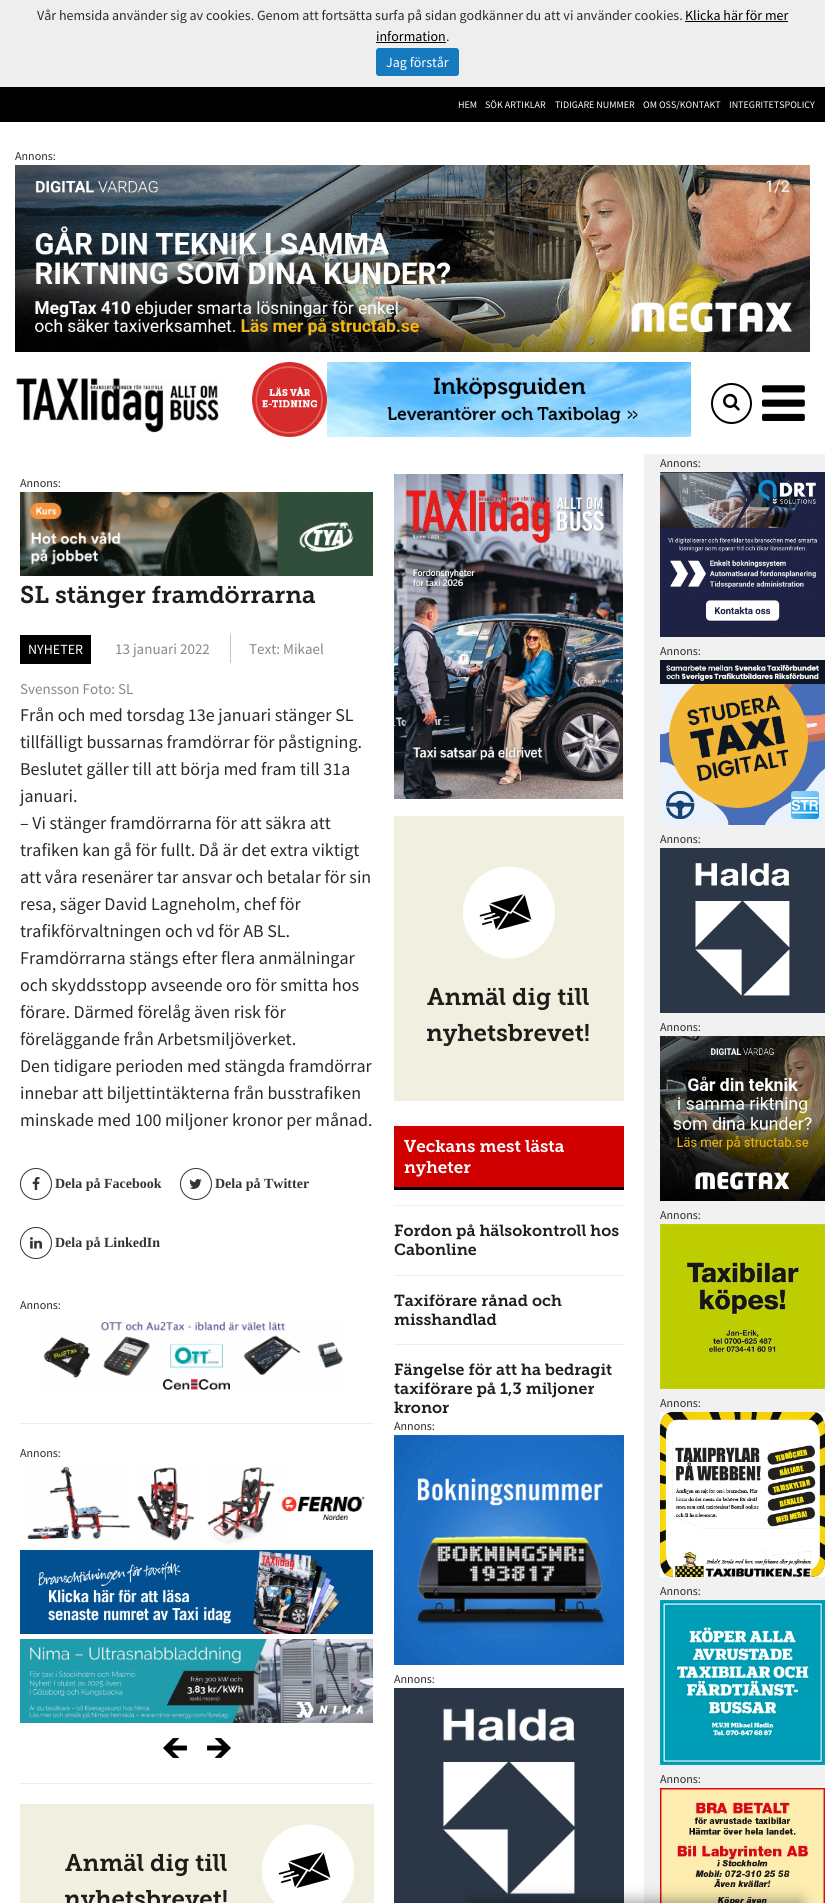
import math
import cairo

surface = cairo.ImageSurface(cairo.Format.RGB24, 825, 1903)
ctx = cairo.Context(surface)
options = cairo.FontOptions()
options.set_hint_metrics(cairo.HintMetrics.OFF)
options.set_hint_style(cairo.HintStyle.NONE)
ctx.set_font_options(options)
ctx.set_miter_limit(4)


def ink(r, g, b):
    ctx.set_source_rgb(r / 255, g / 255, b / 255)


def write(x, y, s, family, size, color, bold=False, italic=False):
    ctx.select_font_face(family, cairo.FontSlant.ITALIC if italic else cairo.FontSlant.NORMAL, cairo.FontWeight.BOLD if bold else cairo.FontWeight.NORMAL)
    ctx.set_font_size(size)
    ink(*color)
    ctx.move_to(x, y)
    ctx.show_text(s)


def block(x, y, w, h, *color):
    ink(*color)
    ctx.rectangle(x, y, w, h)
    ctx.fill()


def round_path(x, y, w, h, r):
    ctx.new_sub_path()
    for i, (u, v) in enumerate([(x + w - r, y + h - r), (x + r, y + h - r), (x + r, y + r), (x + w - r, y + r)]):
        ctx.arc(u, v, r, i * math.pi / 2, (i + 1) * math.pi / 2)
    ctx.close_path()


def blur_box(x, y, w, h, r, blur, alpha):
    ctx.push_group_with_content(cairo.Content.ALPHA)
    ctx.set_operator(cairo.Operator.SOURCE)
    for i in range(15, -16, -2):
        e = blur * i / 6
        if min(w, h) + 2 * e > 0:
            ctx.set_source_rgba(0, 0, 0, alpha * math.erfc((i - 1) / 8.5) / 2)
            round_path(x - e, y - e, w + 2 * e, h + 2 * e, max(0, min(r + e + blur * .6, min(w, h) / 2 + e)))
            ctx.fill()
    ctx.mask(ctx.pop_group())


def paste(path, x, y, w, h):
    ctx.save()
    ctx.set_source_surface(cairo.ImageSurface.create_from_png(path), x, y)
    ctx.rectangle(x, y, w, h)
    ctx.fill()
    ctx.restore()


s1 = dict(family="Source Sans Pro", size=14, color=(42, 42, 42))
s2 = dict(family="Source Sans Pro", size=14, color=(0, 0, 0))
s3 = dict(family="Source Sans Pro", size=14, color=(255, 255, 255))
s4 = dict(family="Source Sans Pro", size=10, color=(255, 255, 255))
s5 = dict(family="Source Sans Pro", size=12, color=(42, 42, 42))
s6 = dict(family="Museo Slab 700 SemiBold", size=24, color=(29, 29, 27))
s7 = dict(family="Source Sans Pro", size=15, color=(136, 136, 136))
s8 = dict(family="Source Sans Pro", size=18, color=(42, 42, 42))
s9 = dict(family="Liberation Serif", size=14, color=(51, 51, 51), bold=True)
s10 = dict(family="Museo Slab 700 SemiBold", size=17, color=(255, 255, 255))
s11 = dict(family="Museo Slab 700 SemiBold", size=16, color=(29, 29, 27))

ink(242, 241, 241)
ctx.paint()
block(0, 0, 825, 87, 238, 238, 238)
write(37, 20, "Vår hemsida använder sig av cookies. Genom att fortsätta surfa på sidan godkänner du att vi använder cookies.", **s1)
write(685, 20, "Klicka här för mer", **s2)
block(685, 21, 103, 1, 0, 0, 0)
write(376, 41, "information", **s2)
block(376, 42, 70, 1, 0, 0, 0)
write(446, 41, ".", **s1)
ink(23, 121, 190)
round_path(376, 48, 83, 28, 3)
ctx.fill()
write(386, 67, "Jag förstår", **s3)
block(0, 87, 825, 35, 0, 0, 0)
write(458, 108, "HEM", **s4)
write(485, 108, "SÖK ARTIKLAR", **s4)
write(555, 108, "TIDIGARE NUMMER", **s4)
write(643, 108, "OM OSS/KONTAKT", **s4)
write(729, 108, "INTEGRITETSPOLICY", **s4)
block(0, 122, 825, 332, 255, 255, 255)
write(15, 160, "Annons:", **s5)
paste("pic1.png", 15, 165, 795, 187)
paste("pic2.png", 16, 377, 205, 56)
paste("pic3.png", 252, 362, 75, 75)
paste("pic4.png", 327, 362, 364, 75)
ctx.arc(731.5, 403.5, 19.5, 0, 2 * math.pi)
ink(0, 0, 0)
ctx.stroke()
paste("pic5.png", 723, 393, 17, 18)
paste("pic6.png", 762, 385, 43, 36)
block(0, 454, 644, 1449, 255, 255, 255)
write(20, 487, "Annons:", **s5)
paste("pic7.png", 20, 492, 353, 84)
write(20, 603, "SL stänger framdörrarna", **s6)
block(20, 635, 71, 29, 0, 0, 0)
write(28, 654, "NYHETER", **s3)
write(115, 654, "13 januari 2022", **s7)
block(230, 634, 1, 29, 199, 199, 199)
write(249, 654, "Text: Mikael", **s7)
write(20, 694, "Svensson Foto: SL", **s7)
write(20, 721, "Från och med torsdag 13e januari stänger SL", **s8)
write(20, 748, "tillfälligt bussarnas framdörrar för påstigning.", **s8)
write(20, 775, "Beslutet gäller till att börja med fram till 31a", **s8)
write(20, 802, "januari.", **s8)
write(20, 829, "– Vi stänger framdörrarna för att säkra att", **s8)
write(20, 856, "trafiken kan gå för fullt. Då är det extra viktigt", **s8)
write(20, 883, "att våra resenärer tar ansvar och betalar för sin", **s8)
write(20, 910, "resa, säger David Lagneholm, chef för", **s8)
write(20, 937, "trafikförvaltningen och vd för AB SL.", **s8)
write(20, 964, "Framdörrarna stängs efter flera anmälningar", **s8)
write(20, 991, "och skyddsstopp avseende oro för smitta hos", **s8)
write(20, 1018, "förare. Därmed förelåg även risk för", **s8)
write(20, 1045, "föreläggande från Arbetsmiljöverket.", **s8)
write(20, 1072, "Den tidigare perioden med stängda framdörrar", **s8)
write(20, 1099, "innebar att biljettintäkterna från busstrafiken", **s8)
write(20, 1126, "minskade med 100 miljoner kronor per månad.", **s8)
ctx.new_path()
ctx.arc(36, 1184, 15.5, 0, 2 * math.pi)
ink(51, 51, 51)
ctx.set_line_width(1)
ctx.stroke()
paste("pic8.png", 32, 1177, 8, 13)
write(55, 1188, "Dela på Facebook", **s9)
ctx.new_path()
ctx.arc(196, 1184, 15.5, 0, 2 * math.pi)
ctx.stroke()
paste("pic9.png", 189, 1179, 13, 10)
write(215, 1188, "Dela på Twitter", **s9)
ctx.new_path()
ctx.arc(36, 1243, 15.5, 0, 2 * math.pi)
ctx.stroke()
paste("pic10.png", 30, 1237, 12, 12)
write(55, 1247, "Dela på LinkedIn", **s9)
block(20, 1423, 354, 1, 238, 238, 238)
write(20, 1309, "Annons:", **s5)
paste("pic11.png", 43, 1321, 300, 69)
block(20, 1783, 354, 1, 238, 238, 238)
write(20, 1457, "Annons:", **s5)
paste("pic12.png", 27, 1466, 338, 79)
paste("pic13.png", 20, 1550, 353, 84)
paste("pic14.png", 20, 1639, 353, 84)
paste("pic15.png", 163, 1738, 24, 20)
paste("pic16.png", 207, 1738, 24, 20)
block(20, 1804, 354, 99, 241, 240, 224)
write(65, 1871, "Anmäl dig till", **s6)
write(64, 1907, "nyhetsbrevet!", **s6)
paste("pic17.png", 262, 1824, 92, 79)
paste("pic18.png", 394, 474, 229, 325)
block(394, 816, 230, 285, 241, 240, 224)
paste("pic19.png", 463, 866, 92, 93)
write(427, 1005, "Anmäl dig till", **s6)
write(426, 1041, "nyhetsbrevet!", **s6)
block(394, 1126, 230, 61, 209, 0, 0)
block(394, 1187, 230, 3, 0, 0, 0)
write(404, 1152, "Veckans mest lästa", **s10)
write(404, 1173, "nyheter", **s10)
block(394, 1205, 230, 1, 238, 238, 238)
write(394, 1236, "Fordon på hälsokontroll hos", **s11)
write(394, 1255, "Cabonline", **s11)
block(394, 1275, 230, 1, 238, 238, 238)
write(394, 1306, "Taxiförare rånad och", **s11)
write(394, 1325, "misshandlad", **s11)
block(394, 1344, 230, 1, 238, 238, 238)
write(394, 1375, "Fängelse för att ha bedragit", **s11)
write(394, 1394, "taxiförare på 1,3 miljoner", **s11)
write(394, 1413, "kronor", **s11)
write(394, 1430, "Annons:", **s5)
paste("pic20.png", 394, 1435, 230, 230)
write(394, 1683, "Annons:", **s5)
paste("pic21.png", 394, 1688, 230, 215)
write(660, 467, "Annons:", **s5)
paste("pic22.png", 660, 472, 165, 165)
write(660, 655, "Annons:", **s5)
paste("pic23.png", 660, 660, 165, 165)
write(660, 843, "Annons:", **s5)
paste("pic24.png", 660, 848, 165, 165)
write(660, 1031, "Annons:", **s5)
paste("pic25.png", 660, 1036, 165, 165)
write(660, 1219, "Annons:", **s5)
paste("pic26.png", 660, 1224, 165, 165)
write(660, 1407, "Annons:", **s5)
paste("pic27.png", 660, 1412, 165, 165)
write(660, 1595, "Annons:", **s5)
paste("pic28.png", 660, 1600, 165, 165)
write(660, 1783, "Annons:", **s5)
paste("pic29.png", 660, 1788, 165, 115)
ink(0, 0, 0)
blur_box(471, 1901, 330, 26, 0, 8, 0.38)
surface.write_to_png("screenshot.png")
